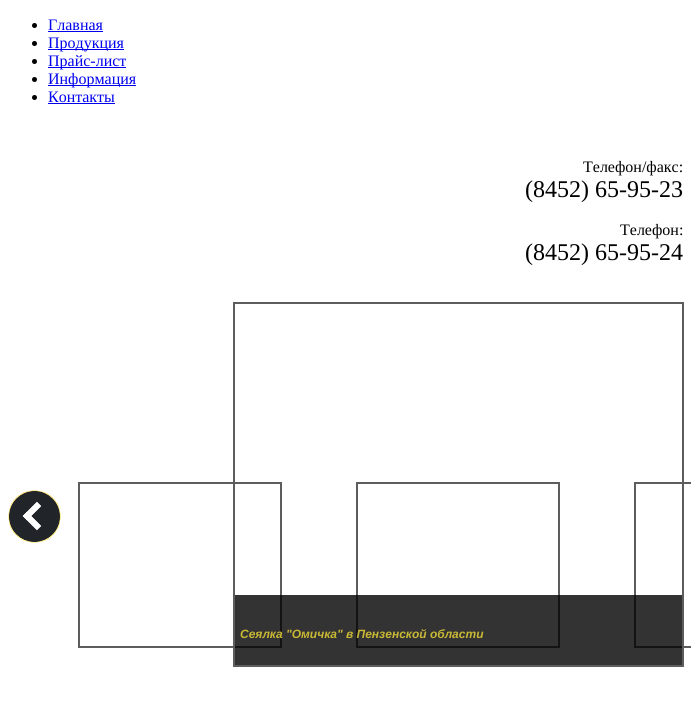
import math
import cairo

surface = cairo.ImageSurface(cairo.Format.RGB24, 691, 708)
ctx = cairo.Context(surface)
options = cairo.FontOptions()
options.set_hint_metrics(cairo.HintMetrics.OFF)
options.set_hint_style(cairo.HintStyle.NONE)
ctx.set_font_options(options)
ctx.set_miter_limit(4)


def ink(r, g, b):
    ctx.set_source_rgb(r / 255, g / 255, b / 255)


def write(x, y, s, family, size, color, bold=False, italic=False):
    ctx.select_font_face(family, cairo.FontSlant.ITALIC if italic else cairo.FontSlant.NORMAL, cairo.FontWeight.BOLD if bold else cairo.FontWeight.NORMAL)
    ctx.set_font_size(size)
    ink(*color)
    ctx.move_to(x, y)
    ctx.show_text(s)


def block(x, y, w, h, *color):
    ink(*color)
    ctx.rectangle(x, y, w, h)
    ctx.fill()


def paste(path, x, y, w, h):
    ctx.save()
    ctx.set_source_surface(cairo.ImageSurface.create_from_png(path), x, y)
    ctx.rectangle(x, y, w, h)
    ctx.fill()
    ctx.restore()


s1 = dict(family="Liberation Serif", size=16, color=(0, 0, 238))
s2 = dict(family="Liberation Serif", size=16, color=(0, 0, 0))
s3 = dict(family="Liberation Serif", size=24, color=(0, 0, 0))
s4 = dict(family="Liberation Sans", size=12, color=(201, 184, 52), bold=True, italic=True)

ink(255, 255, 255)
ctx.paint()
ink(0, 0, 0)
ctx.arc(34.5, 25.5, 2.5, 0, 2 * math.pi)
ctx.fill()
write(48, 30, "Главная", **s1)
block(48, 31, 55, 1, 0, 0, 238)
ink(0, 0, 0)
ctx.new_path()
ctx.arc(34.5, 43.5, 2.5, 0, 2 * math.pi)
ctx.fill()
block(48, 49, 76, 1, 0, 0, 238)
write(48, 48, "Продукция", **s1)
ink(0, 0, 0)
ctx.new_path()
ctx.arc(34.5, 61.5, 2.5, 0, 2 * math.pi)
ctx.fill()
block(48, 67, 78, 1, 0, 0, 238)
write(48, 66, "Прайс-лист", **s1)
ink(0, 0, 0)
ctx.new_path()
ctx.arc(34.5, 79.5, 2.5, 0, 2 * math.pi)
ctx.fill()
block(48, 85, 88, 1, 0, 0, 238)
write(48, 84, "Информация", **s1)
ink(0, 0, 0)
ctx.new_path()
ctx.arc(34.5, 97.5, 2.5, 0, 2 * math.pi)
ctx.fill()
write(48, 102, "Контакты", **s1)
block(48, 103, 67, 1, 0, 0, 238)
write(583, 172, "Телефон/факс:", **s2)
write(525, 197, "(8452) 65-95-23", **s3)
write(620, 235, "Телефон:", **s2)
write(525, 260, "(8452) 65-95-24", **s3)
paste("pic1.png", 8, 490, 53, 53)
ctx.rectangle(79, 483, 202, 164)
ink(93, 93, 93)
ctx.stroke()
ctx.rectangle(357, 483, 202, 164)
ctx.stroke()
ctx.rectangle(635, 483, 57, 164)
ctx.stroke()
ctx.rectangle(234, 303, 449, 363)
ctx.stroke()
ctx.set_source_rgba(0, 0, 0, 0.8)
ctx.rectangle(235, 595, 447, 70)
ctx.fill()
write(240, 638, "Сеялка \"Омичка\" в Пензенской области", **s4)
surface.write_to_png("screenshot.png")
